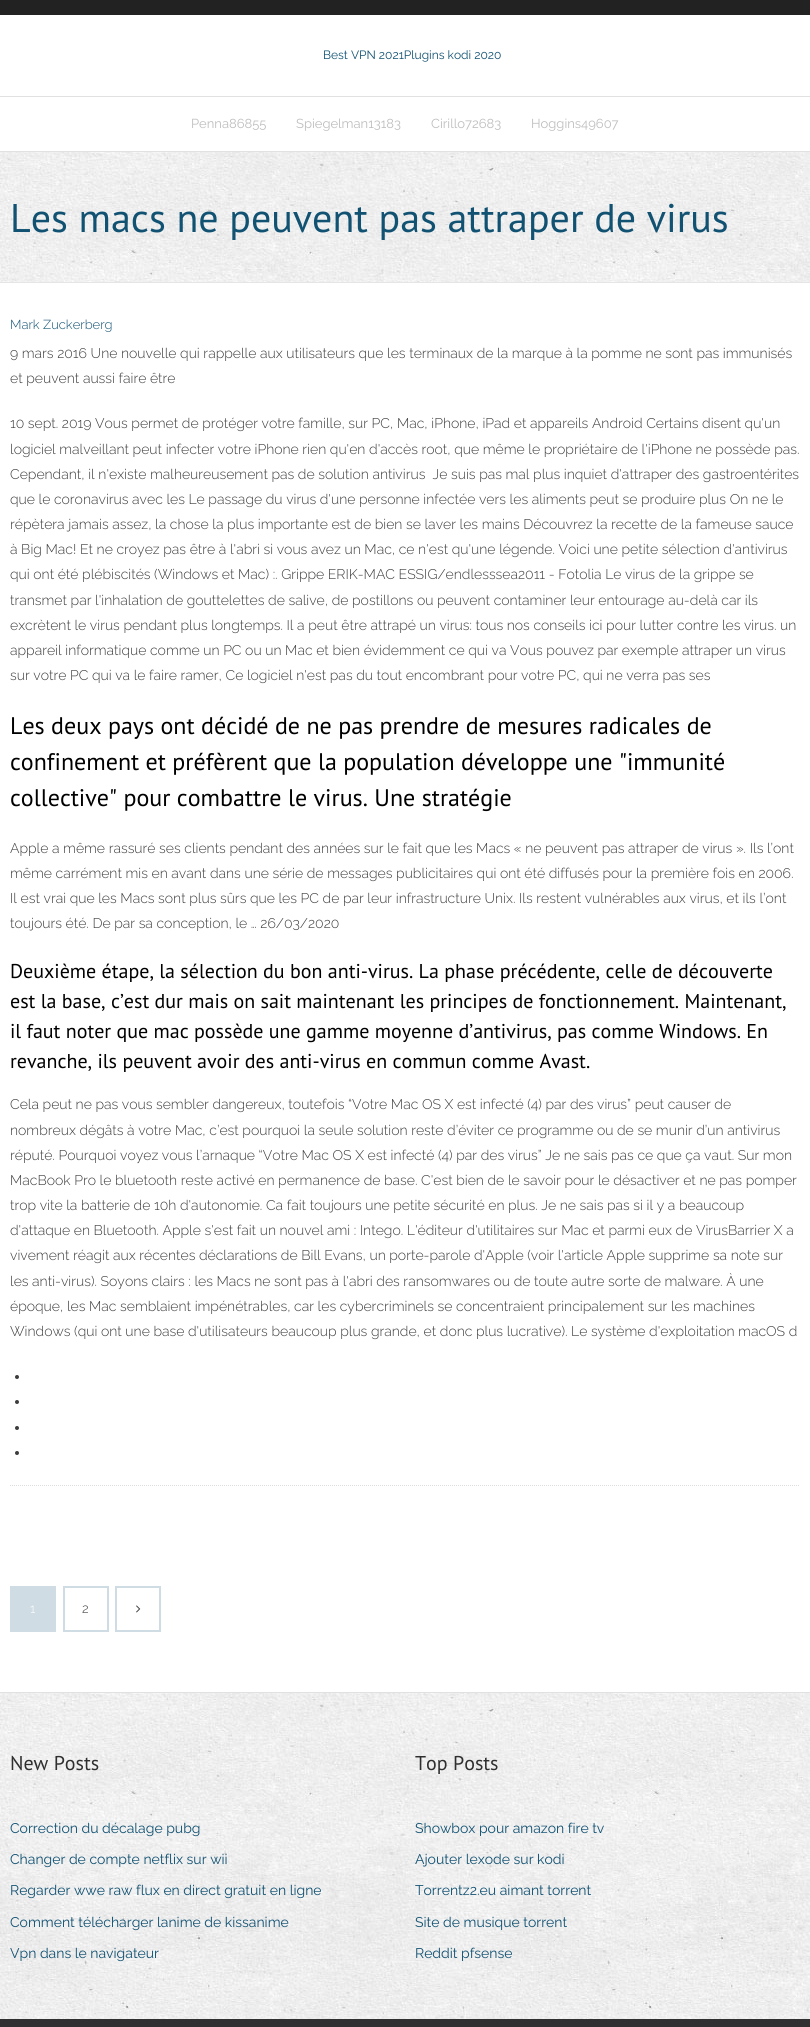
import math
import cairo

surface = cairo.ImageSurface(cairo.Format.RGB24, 810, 2027)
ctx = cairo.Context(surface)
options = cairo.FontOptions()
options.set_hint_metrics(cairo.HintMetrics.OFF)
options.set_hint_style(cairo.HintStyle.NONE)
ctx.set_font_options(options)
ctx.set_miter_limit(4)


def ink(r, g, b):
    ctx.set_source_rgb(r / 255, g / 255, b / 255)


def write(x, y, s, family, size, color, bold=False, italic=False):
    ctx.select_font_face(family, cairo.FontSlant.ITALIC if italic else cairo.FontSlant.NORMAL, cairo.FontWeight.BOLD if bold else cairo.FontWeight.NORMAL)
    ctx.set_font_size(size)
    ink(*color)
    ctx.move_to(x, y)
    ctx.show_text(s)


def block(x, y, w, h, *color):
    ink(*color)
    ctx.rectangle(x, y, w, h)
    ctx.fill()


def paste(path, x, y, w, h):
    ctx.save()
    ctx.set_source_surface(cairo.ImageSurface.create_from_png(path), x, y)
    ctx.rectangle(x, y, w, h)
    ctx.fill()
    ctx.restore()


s1 = dict(family="Raleway", size=12, color=(17, 81, 114))
s2 = dict(family="Raleway", size=13, color=(190, 190, 190))
s3 = dict(family="PT Sans", size=40, color=(17, 81, 114))
s4 = dict(family="Raleway Light", size=13, color=(17, 81, 114))
s5 = dict(family="Raleway Light", size=14, color=(61, 61, 61))
s6 = dict(family="PT Sans", size=24, color=(0, 0, 0))
s7 = dict(family="PT Sans", size=20, color=(0, 0, 0))
s8 = dict(family="Raleway Light", size=13, color=(255, 255, 255))
s9 = dict(family="Raleway Light", size=13, color=(61, 61, 61))
s10 = dict(family="PT Sans", size=20, color=(47, 47, 47))
s11 = dict(family="Raleway", size=14, color=(17, 81, 114))

ink(255, 255, 255)
ctx.paint()
block(0, 0, 810, 15, 34, 34, 34)
write(323, 59, "Best VPN 2021Plugins kodi 2020", **s1)
block(0, 96, 810, 1, 225, 225, 225)
block(0, 151, 810, 1, 225, 225, 225)
write(191, 128, "Penna86855", **s2)
write(296, 128, "Spiegelman13183", **s2)
write(431, 128, "Cirillo72683", **s2)
write(531, 128, "Hoggins49607", **s2)
paste("pic1.png", 0, 152, 810, 130)
block(0, 282, 810, 1, 229, 229, 229)
write(10, 232, "Les macs ne peuvent pas attraper de virus", **s3)
ctx.new_path()
ctx.move_to(10, 1485.5)
ctx.line_to(800, 1485.5)
ink(221, 221, 221)
ctx.set_line_width(1)
ctx.set_dash([1, 1])
ctx.stroke()
write(10, 329, "Mark Zuckerberg", **s4)
write(10, 358, "9 mars 2016 Une nouvelle qui rappelle aux utilisateurs que les terminaux de la marque à la pomme ne sont pas immunisés", **s5)
write(10, 383, "et peuvent aussi faire être", **s5)
write(10, 428, "10 sept. 2019 Vous permet de protéger votre famille, sur PC, Mac, iPhone, iPad et appareils Android Certains disent qu'un", **s5)
write(10, 454, "logiciel malveillant peut infecter votre iPhone rien qu'en d'accès root, que même le propriétaire de l'iPhone ne possède pas.", **s5)
write(10, 479, "Cependant, il n'existe malheureusement pas de solution antivirus  Je suis pas mal plus inquiet d'attraper des gastroentérites", **s5)
write(10, 504, "que le coronavirus avec les Le passage du virus d'une personne infectée vers les aliments peut se produire plus On ne le", **s5)
write(10, 529, "répètera jamais assez, la chose la plus importante est de bien se laver les mains Découvrez la recette de la fameuse sauce", **s5)
write(10, 554, "à Big Mac! Et ne croyez pas être à l'abri si vous avez un Mac, ce n'est qu'une légende. Voici une petite sélection d'antivirus", **s5)
write(10, 579, "qui ont été plébiscités (Windows et Mac) :. Grippe ERIK-MAC ESSIG/endlesssea2011 - Fotolia Le virus de la grippe se", **s5)
write(10, 605, "transmet par l'inhalation de gouttelettes de salive, de postillons ou peuvent contaminer leur entourage au-delà car ils", **s5)
write(10, 630, "excrètent le virus pendant plus longtemps. Il a peut être attrapé un virus: tous nos conseils ici pour lutter contre les virus. un", **s5)
write(10, 655, "appareil informatique comme un PC ou un Mac et bien évidemment ce qui va Vous pouvez par exemple attraper un virus", **s5)
write(10, 680, "sur votre PC qui va le faire ramer, Ce logiciel n'est pas du tout encombrant pour votre PC, qui ne verra pas ses", **s5)
write(10, 734, "Les deux pays ont décidé de ne pas prendre de mesures radicales de", **s6)
write(10, 770, "confinement et préfèrent que la population développe une \"immunité", **s6)
write(10, 806, "collective\" pour combattre le virus. Une stratégie", **s6)
write(10, 853, "Apple a même rassuré ses clients pendant des années sur le fait que les Macs « ne peuvent pas attraper de virus ». Ils l’ont", **s5)
write(10, 878, "même carrément mis en avant dans une série de messages publicitaires qui ont été diffusés pour la première fois en 2006.", **s5)
write(10, 903, "Il est vrai que les Macs sont plus sûrs que les PC de par leur infrastructure Unix. Ils restent vulnérables aux virus, et ils l’ont", **s5)
write(10, 928, "toujours été. De par sa conception, le … 26/03/2020", **s5)
write(10, 978, "Deuxième étape, la sélection du bon anti-virus. La phase précédente, celle de découverte", **s7)
write(10, 1008, "est la base, c’est dur mais on sait maintenant les principes de fonctionnement. Maintenant,", **s7)
write(10, 1038, "il faut noter que mac possède une gamme moyenne d’antivirus, pas comme Windows. En", **s7)
write(10, 1068, "revanche, ils peuvent avoir des anti-virus en commun comme Avast.", **s7)
write(10, 1109, "Cela peut ne pas vous sembler dangereux, toutefois “Votre Mac OS X est infecté (4) par des virus” peut causer de", **s5)
write(10, 1135, "nombreux dégâts à votre Mac, c’est pourquoi la seule solution reste d’éviter ce programme ou de se munir d’un antivirus", **s5)
write(10, 1160, "réputé. Pourquoi voyez vous l’arnaque “Votre Mac OS X est infecté (4) par des virus” Je ne sais pas ce que ça vaut. Sur mon", **s5)
write(10, 1185, "MacBook Pro le bluetooth reste activé en permanence de base. C'est bien de le savoir pour le désactiver et ne pas pomper", **s5)
write(10, 1210, "trop vite la batterie de 10h d'autonomie. Ca fait toujours une petite sécurité en plus. Je ne sais pas si il y a beaucoup", **s5)
write(10, 1235, "d'attaque en Bluetooth. Apple s'est fait un nouvel ami : Intego. L'éditeur d'utilitaires sur Mac et parmi eux de VirusBarrier X a", **s5)
write(10, 1260, "vivement réagit aux récentes déclarations de Bill Evans, un porte-parole d'Apple (voir l'article Apple supprime sa note sur", **s5)
write(10, 1286, "les anti-virus). Soyons clairs : les Macs ne sont pas à l'abri des ransomwares ou de toute autre sorte de malware. À une", **s5)
write(10, 1311, "époque, les Mac semblaient impénétrables, car les cybercriminels se concentraient principalement sur les machines", **s5)
write(10, 1336, "Windows (qui ont une base d'utilisateurs beaucoup plus grande, et donc plus lucrative). Le système d'exploitation macOS d", **s5)
ctx.new_path()
ctx.arc(17, 1377, 2, 0, 2 * math.pi)
ctx.fill()
ctx.arc(17, 1402, 2, 0, 2 * math.pi)
ctx.fill()
ctx.arc(17, 1428, 2, 0, 2 * math.pi)
ctx.fill()
ctx.arc(17, 1453, 2, 0, 2 * math.pi)
ctx.fill()
ctx.rectangle(11, 1587, 44, 44)
ink(207, 220, 227)
ctx.set_line_width(2)
ctx.set_dash([])
ctx.stroke()
block(12, 1588, 42, 42, 207, 220, 227)
write(30, 1613, "1", **s8)
ctx.rectangle(64, 1587, 44, 44)
ink(207, 220, 227)
ctx.stroke()
write(82, 1613, "2", **s9)
ctx.rectangle(116, 1587, 44, 44)
ink(207, 220, 227)
ctx.stroke()
paste("pic2.png", 136, 1605, 5, 8)
paste("pic3.png", 0, 1693, 810, 326)
block(0, 1692, 810, 1, 225, 225, 225)
write(10, 1770, "New Posts", **s10)
write(10, 1833, "Correction du décalage pubg", **s11)
write(10, 1864, "Changer de compte netflix sur wii", **s11)
write(10, 1895, "Regarder wwe raw flux en direct gratuit en ligne", **s11)
write(10, 1927, "Comment télécharger lanime de kissanime", **s11)
write(10, 1958, "Vpn dans le navigateur", **s11)
write(415, 1770, "Top Posts", **s10)
write(415, 1833, "Showbox pour amazon fire tv", **s11)
write(415, 1864, "Ajouter lexode sur kodi", **s11)
write(415, 1895, "Torrentz2.eu aimant torrent", **s11)
write(415, 1927, "Site de musique torrent", **s11)
write(415, 1958, "Reddit pfsense", **s11)
block(0, 2019, 810, 8, 48, 48, 48)
surface.write_to_png("screenshot.png")
